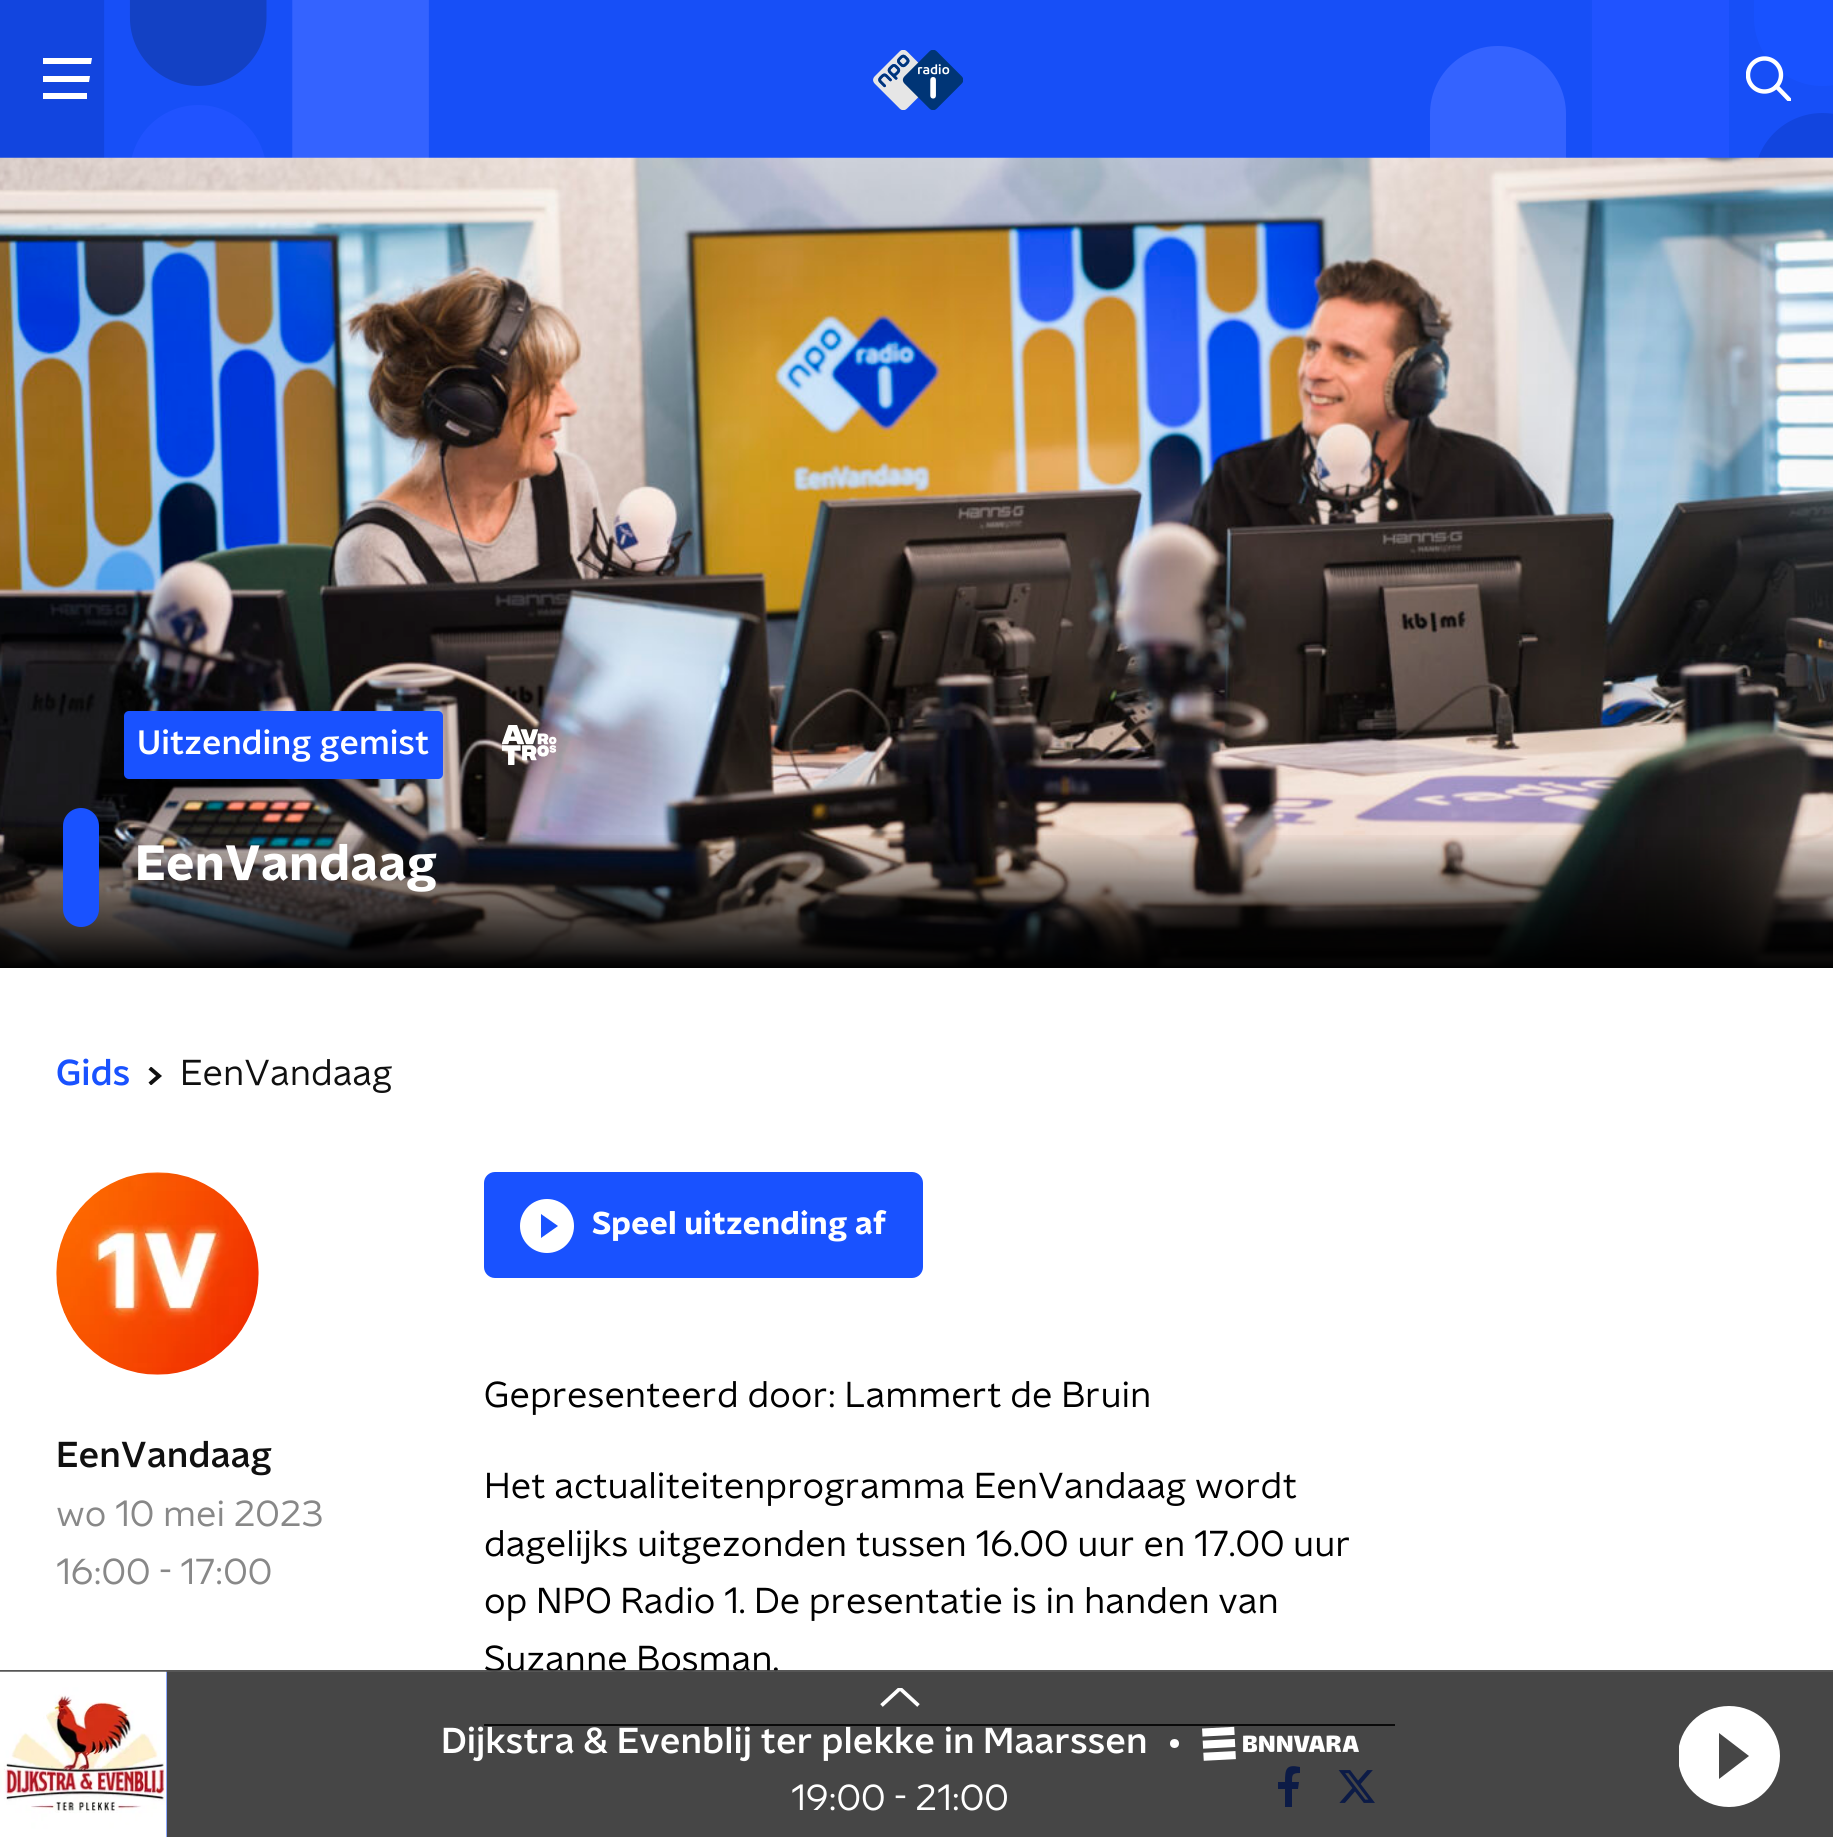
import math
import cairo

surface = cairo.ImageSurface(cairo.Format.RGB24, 1833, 1837)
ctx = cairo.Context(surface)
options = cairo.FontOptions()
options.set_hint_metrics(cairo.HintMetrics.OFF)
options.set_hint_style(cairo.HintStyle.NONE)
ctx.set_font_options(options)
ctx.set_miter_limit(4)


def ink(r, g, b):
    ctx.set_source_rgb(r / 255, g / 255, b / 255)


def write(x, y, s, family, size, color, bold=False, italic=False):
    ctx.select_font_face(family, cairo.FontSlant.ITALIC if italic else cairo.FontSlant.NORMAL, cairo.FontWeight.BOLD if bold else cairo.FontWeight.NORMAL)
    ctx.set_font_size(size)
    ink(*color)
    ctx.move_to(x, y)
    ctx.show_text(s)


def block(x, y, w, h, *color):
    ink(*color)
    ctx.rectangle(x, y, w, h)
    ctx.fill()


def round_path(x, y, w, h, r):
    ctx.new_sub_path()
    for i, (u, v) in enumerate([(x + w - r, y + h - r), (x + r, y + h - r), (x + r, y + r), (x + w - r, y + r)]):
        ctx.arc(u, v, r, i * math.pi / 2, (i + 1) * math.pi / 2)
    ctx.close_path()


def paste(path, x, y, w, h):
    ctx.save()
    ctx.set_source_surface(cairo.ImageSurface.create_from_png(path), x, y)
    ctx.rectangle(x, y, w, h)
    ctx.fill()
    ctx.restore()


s1 = dict(family="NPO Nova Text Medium", size=33.75, color=(255, 255, 255))
s2 = dict(family="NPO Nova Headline", size=49.5, color=(255, 255, 255), bold=True)
s3 = dict(family="NPO Nova Text Medium", size=36, color=(25, 82, 255))
s4 = dict(family="NPO Nova Text", size=36, color=(16, 16, 16))
s5 = dict(family="NPO Nova Text Medium", size=36, color=(16, 16, 16))
s6 = dict(family="NPO Nova Text", size=36, color=(136, 136, 136))
s7 = dict(family="NPO Nova Headline", size=31.5, color=(255, 255, 255), bold=True)
s8 = dict(family="NPO Nova Text", size=36, color=(0, 0, 0))
s9 = dict(family="NPO Nova Text Medium", size=36, color=(255, 255, 255))
s10 = dict(family="NPO Nova Text", size=36, color=(255, 255, 255))

ink(255, 255, 255)
ctx.paint()
paste("pic1.png", 0, 0, 1833, 158)
ink(255, 255, 255)
ctx.new_path()
ctx.move_to(43, 58)
ctx.line_to(92, 58)
ctx.line_to(91, 64)
ctx.line_to(43, 64)
ctx.close_path()
ctx.move_to(43, 76)
ctx.line_to(90, 76)
ctx.line_to(89, 82)
ctx.line_to(43, 82)
ctx.close_path()
ctx.move_to(43, 93)
ctx.line_to(87, 93)
ctx.line_to(87, 99)
ctx.line_to(43, 99)
ctx.close_path()
ctx.fill()
paste("pic2.png", 873, 50, 90, 60)
ctx.save()
ctx.rectangle(1746, 56, 45, 45)
ctx.clip()
ctx.arc(1764.5, 75, 16.5, 0, 2 * math.pi)
ctx.set_line_width(4.4)
ctx.stroke()
ctx.new_path()
ctx.move_to(1776.5, 86.5)
ctx.line_to(1789.5, 100)
ctx.set_line_cap(cairo.LineCap.SQUARE)
ctx.stroke()
ctx.restore()
paste("pic3.png", 0, 157, 1833, 810)
gradient = cairo.LinearGradient(917, 832, 917, 968)
gradient.add_color_stop_rgba(0, 0, 0, 0, 0)
gradient.add_color_stop_rgba(1, 0, 0, 0, 1)
ctx.set_source(gradient)
ctx.rectangle(0, 835, 1833, 133)
ctx.fill()
ink(25, 82, 255)
round_path(124, 711, 319, 68, 5)
ctx.fill()
write(137, 754, "Uitzending gemist", **s1)
paste("pic4.png", 502, 725, 55, 40)
ink(25, 82, 255)
round_path(63, 808, 36, 119, 18)
ctx.fill()
write(135, 880, "EenVandaag", **s2)
write(56, 1085, "Gids", **s3)
ctx.save()
ctx.rectangle(131, 1067, 49, 18)
ctx.clip()
ink(16, 16, 16)
ctx.set_fill_rule(cairo.FillRule.EVEN_ODD)
ctx.new_path()
ctx.move_to(151, 1066.5)
ctx.line_to(162, 1076)
ctx.line_to(151, 1085.5)
ctx.line_to(148.5, 1082.5)
ctx.line_to(156, 1076)
ctx.line_to(148.5, 1069.5)
ctx.close_path()
ctx.fill()
ctx.restore()
write(180, 1085, "EenVandaag", **s4)
paste("pic5.png", 56, 1172, 203, 203)
write(56, 1467, "EenVandaag", **s5)
write(56, 1526, "wo 10 mei 2023", **s6)
write(56, 1584, "16:00 - 17:00", **s6)
ink(25, 82, 255)
round_path(484, 1172, 439, 106, 11)
ctx.fill()
ink(255, 255, 255)
ctx.new_path()
ctx.move_to(547, 1199)
ctx.curve_to(532, 1199, 520, 1211, 520, 1226)
ctx.curve_to(520, 1241, 532, 1253, 547, 1253)
ctx.curve_to(562, 1253, 574, 1241, 574, 1226)
ctx.curve_to(574, 1211, 562, 1199, 547, 1199)
ctx.close_path()
ctx.move_to(541, 1238)
ctx.line_to(541, 1214)
ctx.line_to(558, 1226)
ctx.close_path()
ctx.fill()
write(592, 1234, "Speel uitzending af", **s7)
write(484, 1407, "Gepresenteerd door: Lammert de Bruin", **s8)
write(484, 1498, "Het actualiteitenprogramma EenVandaag wordt", **s8)
write(484, 1556, "dagelijks uitgezonden tussen 16.00 uur en 17.00 uur", **s8)
write(484, 1613, "op NPO Radio 1. De presentatie is in handen van", **s8)
write(484, 1671, "Suzanne Bosman.", **s8)
block(484, 1724, 911, 2, 16, 16, 16)
ink(25, 82, 255)
ctx.new_path()
ctx.move_to(1298, 1789)
ctx.line_to(1299, 1782)
ctx.line_to(1292, 1782)
ctx.curve_to(1292, 1775, 1292, 1773, 1300, 1773)
ctx.line_to(1300, 1767)
ctx.curve_to(1286, 1764, 1285, 1769, 1285, 1782)
ctx.line_to(1278, 1782)
ctx.line_to(1278, 1789)
ctx.line_to(1285, 1789)
ctx.line_to(1285, 1807)
ctx.line_to(1292, 1807)
ctx.line_to(1292, 1789)
ctx.close_path()
ctx.fill()
paste("pic6.png", 1338, 1770, 37, 33)
ctx.set_source_rgba(0.035, 0.035, 0.035, 0.75)
ctx.rectangle(0, 1670, 1833, 167)
ctx.fill()
ctx.set_source_rgba(0.373, 0.373, 0.373, 0.65)
ctx.rectangle(0, 1670, 1833, 2)
ctx.fill()
block(166, 1672, 1, 165, 25, 82, 255)
paste("pic7.png", 0, 1671, 167, 166)
ctx.save()
ctx.rectangle(880, 1688, 40, 20)
ctx.clip()
ctx.new_path()
ctx.move_to(918.5, 1705.5)
ctx.line_to(900, 1688.5)
ctx.line_to(881.5, 1705.5)
ink(255, 255, 255)
ctx.set_line_width(3.7)
ctx.stroke()
ctx.restore()
write(441, 1753, "Dijkstra & Evenblij ter plekke in Maarssen", **s9)
ctx.new_path()
ctx.arc(1174.5, 1743.5, 4.5, 0, 2 * math.pi)
ctx.fill()
paste("pic8.png", 1202, 1726, 157, 35)
write(791, 1810, "19:00 - 21:00", **s10)
ctx.save()
ctx.rectangle(1679, 1706, 101, 101)
ctx.clip()
ctx.new_path()
ctx.move_to(1729, 1706)
ctx.curve_to(1701, 1706, 1678, 1728, 1678, 1756)
ctx.curve_to(1678, 1784, 1701, 1807, 1729, 1807)
ctx.curve_to(1757, 1807, 1780, 1784, 1780, 1756)
ctx.curve_to(1780, 1728, 1757, 1706, 1729, 1706)
ctx.close_path()
ctx.move_to(1719, 1779)
ctx.line_to(1719, 1733)
ctx.line_to(1749, 1756)
ctx.close_path()
ctx.fill()
ctx.restore()
surface.write_to_png("screenshot.png")
